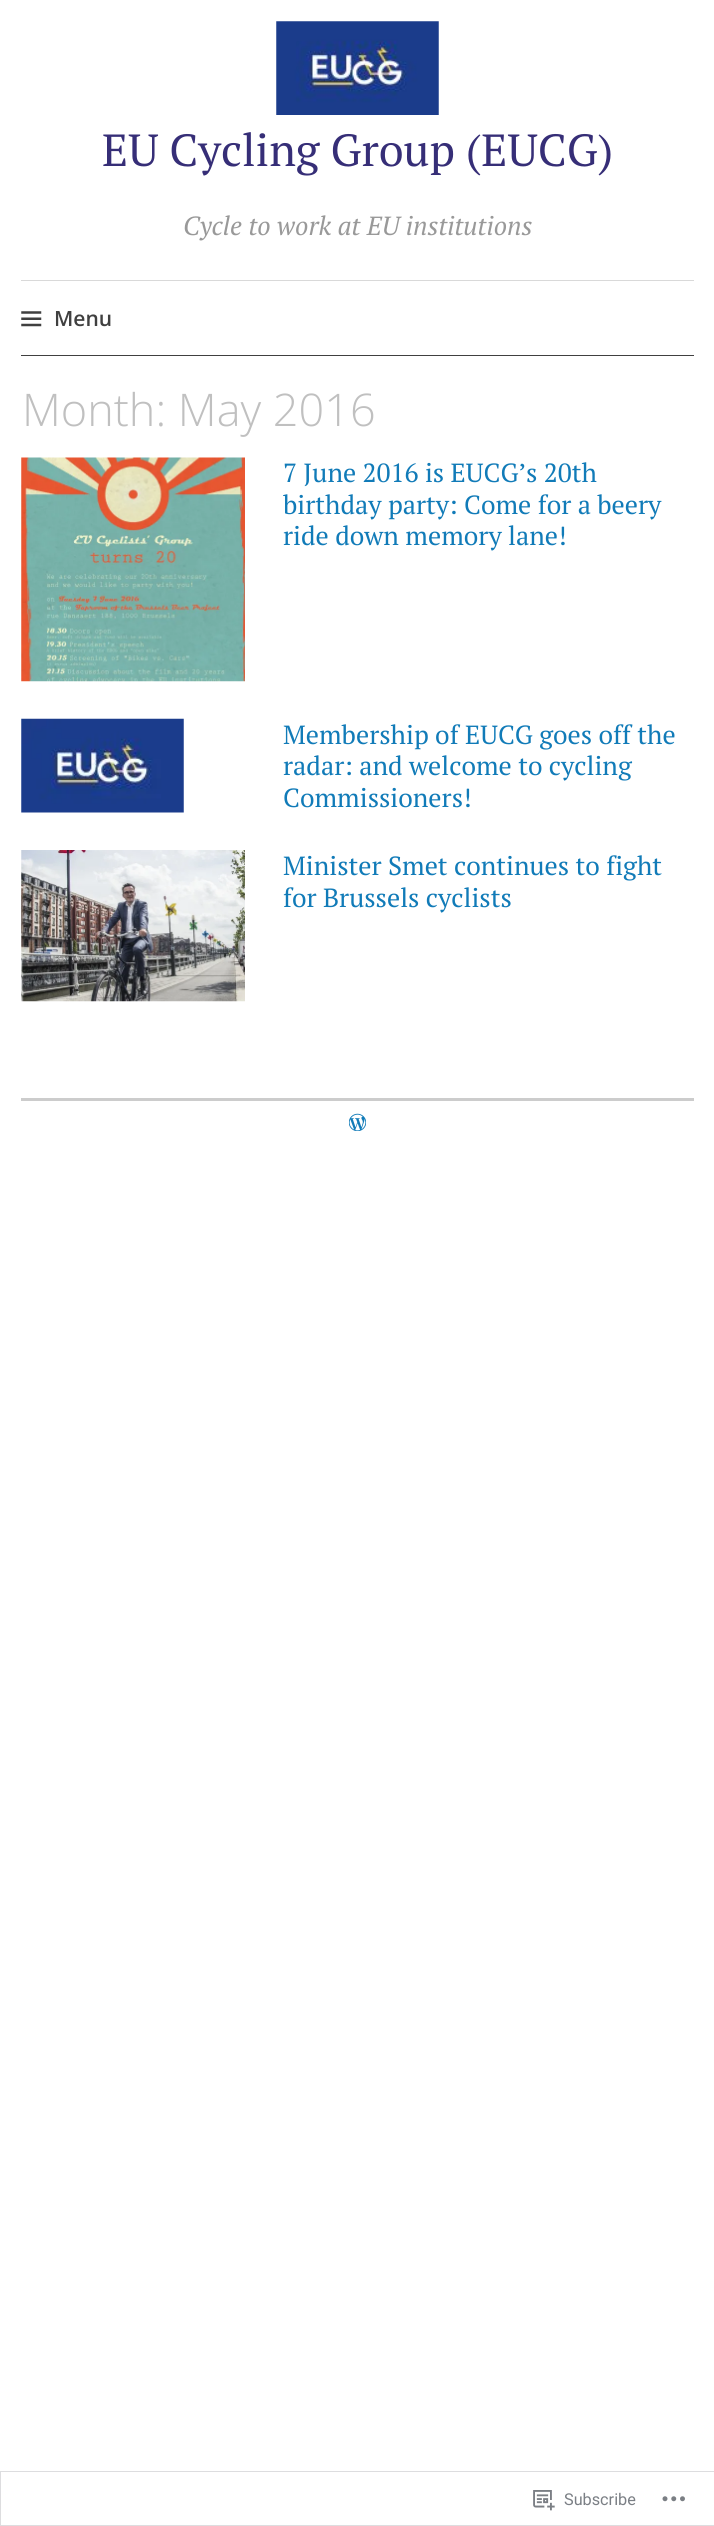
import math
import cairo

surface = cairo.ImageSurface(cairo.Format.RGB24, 714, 2526)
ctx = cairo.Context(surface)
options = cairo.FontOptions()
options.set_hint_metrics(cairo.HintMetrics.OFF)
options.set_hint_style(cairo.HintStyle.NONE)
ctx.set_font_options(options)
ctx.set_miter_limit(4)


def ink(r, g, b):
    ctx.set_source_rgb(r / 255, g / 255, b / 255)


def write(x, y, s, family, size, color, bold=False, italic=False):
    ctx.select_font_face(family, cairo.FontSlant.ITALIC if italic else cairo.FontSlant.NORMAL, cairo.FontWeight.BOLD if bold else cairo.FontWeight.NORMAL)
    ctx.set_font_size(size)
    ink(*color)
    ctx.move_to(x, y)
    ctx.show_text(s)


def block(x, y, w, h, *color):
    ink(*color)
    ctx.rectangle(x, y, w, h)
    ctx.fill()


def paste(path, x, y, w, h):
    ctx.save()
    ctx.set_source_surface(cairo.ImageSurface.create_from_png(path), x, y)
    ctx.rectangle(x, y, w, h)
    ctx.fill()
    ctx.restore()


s1 = dict(family="PT Serif", size=45, color=(54, 46, 119))
s2 = dict(family="PT Serif", size=26.25, color=(153, 153, 153), italic=True)
s3 = dict(family="Open Sans SemiBold", size=21, color=(64, 64, 64))
s4 = dict(family="Open Sans Light", size=45, color=(192, 192, 192))
s5 = dict(family="PT Serif", size=26.25, color=(17, 123, 184))
s6 = dict(family="Roboto", size=16.25, color=(123, 127, 133))

ink(255, 255, 255)
ctx.paint()
paste("pic1.png", 276, 21, 163, 94)
write(102, 166, "EU Cycling Group (EUCG)", **s1)
write(183, 235, "Cycle to work at EU institutions", **s2)
block(21, 280, 673, 1, 217, 217, 217)
block(21, 355, 673, 1, 64, 64, 64)
paste("pic2.png", 21, 311, 21, 16)
write(54, 326, "Menu", **s3)
write(22, 426, "Month: May 2016", **s4)
paste("pic3.png", 21, 457, 224, 225)
write(283, 482, "7 June 2016 is EUCG’s 20th", **s5)
write(283, 514, "birthday party: Come for a beery", **s5)
write(283, 545, "ride down memory lane!", **s5)
paste("pic4.png", 21, 718, 163, 95)
write(283, 744, "Membership of EUCG goes off the", **s5)
write(283, 775, "radar: and welcome to cycling", **s5)
write(283, 807, "Commissioners!", **s5)
paste("pic5.png", 21, 850, 224, 152)
write(283, 875, "Minister Smet continues to fight", **s5)
write(283, 907, "for Brussels cyclists", **s5)
block(21, 1098, 673, 3, 204, 204, 204)
paste("pic6.png", 349, 1113, 17, 18)
ctx.rectangle(0.5, 2471.5, 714, 54)
ink(221, 221, 223)
ctx.set_line_width(1)
ctx.stroke()
paste("pic7.png", 533, 2490, 22, 21)
write(564, 2505, "Subscribe", **s6)
paste("pic8.png", 662, 2496, 23, 6)
surface.write_to_png("screenshot.png")
